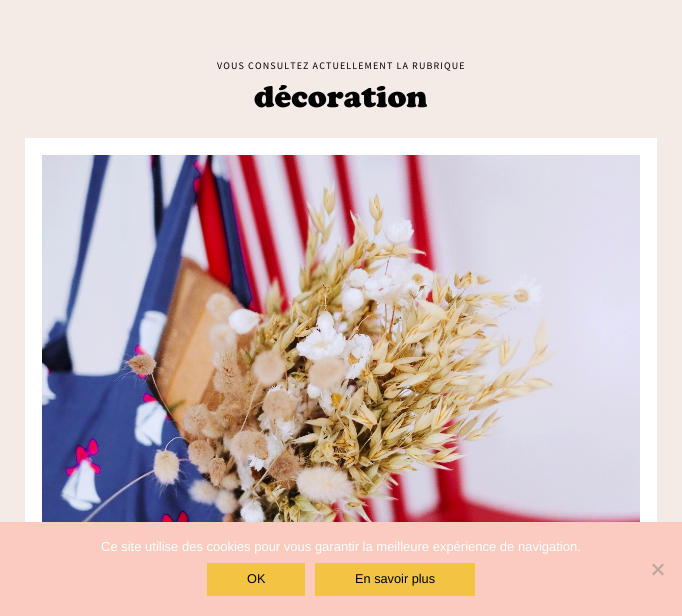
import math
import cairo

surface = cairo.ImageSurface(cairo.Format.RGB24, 682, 616)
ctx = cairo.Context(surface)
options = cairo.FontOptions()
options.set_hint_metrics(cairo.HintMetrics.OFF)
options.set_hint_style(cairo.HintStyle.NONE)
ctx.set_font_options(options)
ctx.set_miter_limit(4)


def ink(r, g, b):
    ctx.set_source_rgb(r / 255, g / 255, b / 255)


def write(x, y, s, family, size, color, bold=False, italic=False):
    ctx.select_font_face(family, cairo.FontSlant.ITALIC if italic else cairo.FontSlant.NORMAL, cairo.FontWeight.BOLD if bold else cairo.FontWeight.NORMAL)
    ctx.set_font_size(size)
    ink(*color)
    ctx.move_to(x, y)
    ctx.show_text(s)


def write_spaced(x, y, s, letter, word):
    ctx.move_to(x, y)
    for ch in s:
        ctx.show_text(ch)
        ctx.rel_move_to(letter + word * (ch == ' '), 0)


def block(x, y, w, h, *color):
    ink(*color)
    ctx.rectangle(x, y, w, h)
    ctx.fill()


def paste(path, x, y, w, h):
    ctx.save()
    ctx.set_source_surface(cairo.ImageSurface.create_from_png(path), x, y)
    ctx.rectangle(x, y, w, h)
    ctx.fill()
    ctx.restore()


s1 = dict(family="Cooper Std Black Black", size=30, color=(0, 0, 0))
s2 = dict(family="Liberation Sans", size=13, color=(255, 255, 255))
s3 = dict(family="Liberation Sans", size=12.75, color=(0, 0, 0))

ink(244, 234, 230)
ctx.paint()
ctx.select_font_face("Source Sans Pro")
ctx.set_font_size(10)
ink(0, 0, 0)
write_spaced(217, 69, "VOUS CONSULTEZ ACTUELLEMENT LA RUBRIQUE", 1.1, 0)
write(254, 107, "décoration", **s1)
block(25, 138, 632, 384, 255, 255, 255)
paste("pic1.png", 42, 155, 598, 367)
block(0, 522, 682, 94, 252, 203, 191)
write(101, 551, "Ce site utilise des cookies pour vous garantir la meilleure expérience de navigation.", **s2)
ink(190, 166, 160)
ctx.new_path()
ctx.move_to(662.5, 563.5)
ctx.line_to(664, 565)
ctx.line_to(653.5, 575.5)
ctx.line_to(652, 574)
ctx.close_path()
ctx.fill()
ctx.new_path()
ctx.move_to(652, 565)
ctx.line_to(653.5, 563.5)
ctx.line_to(664, 574)
ctx.line_to(662.5, 575.5)
ctx.close_path()
ctx.fill()
block(207, 563, 98, 33, 243, 196, 68)
write(247, 583, "OK", **s3)
block(315, 563, 160, 33, 243, 196, 68)
write(355, 583, "En savoir plus", **s3)
surface.write_to_png("screenshot.png")
